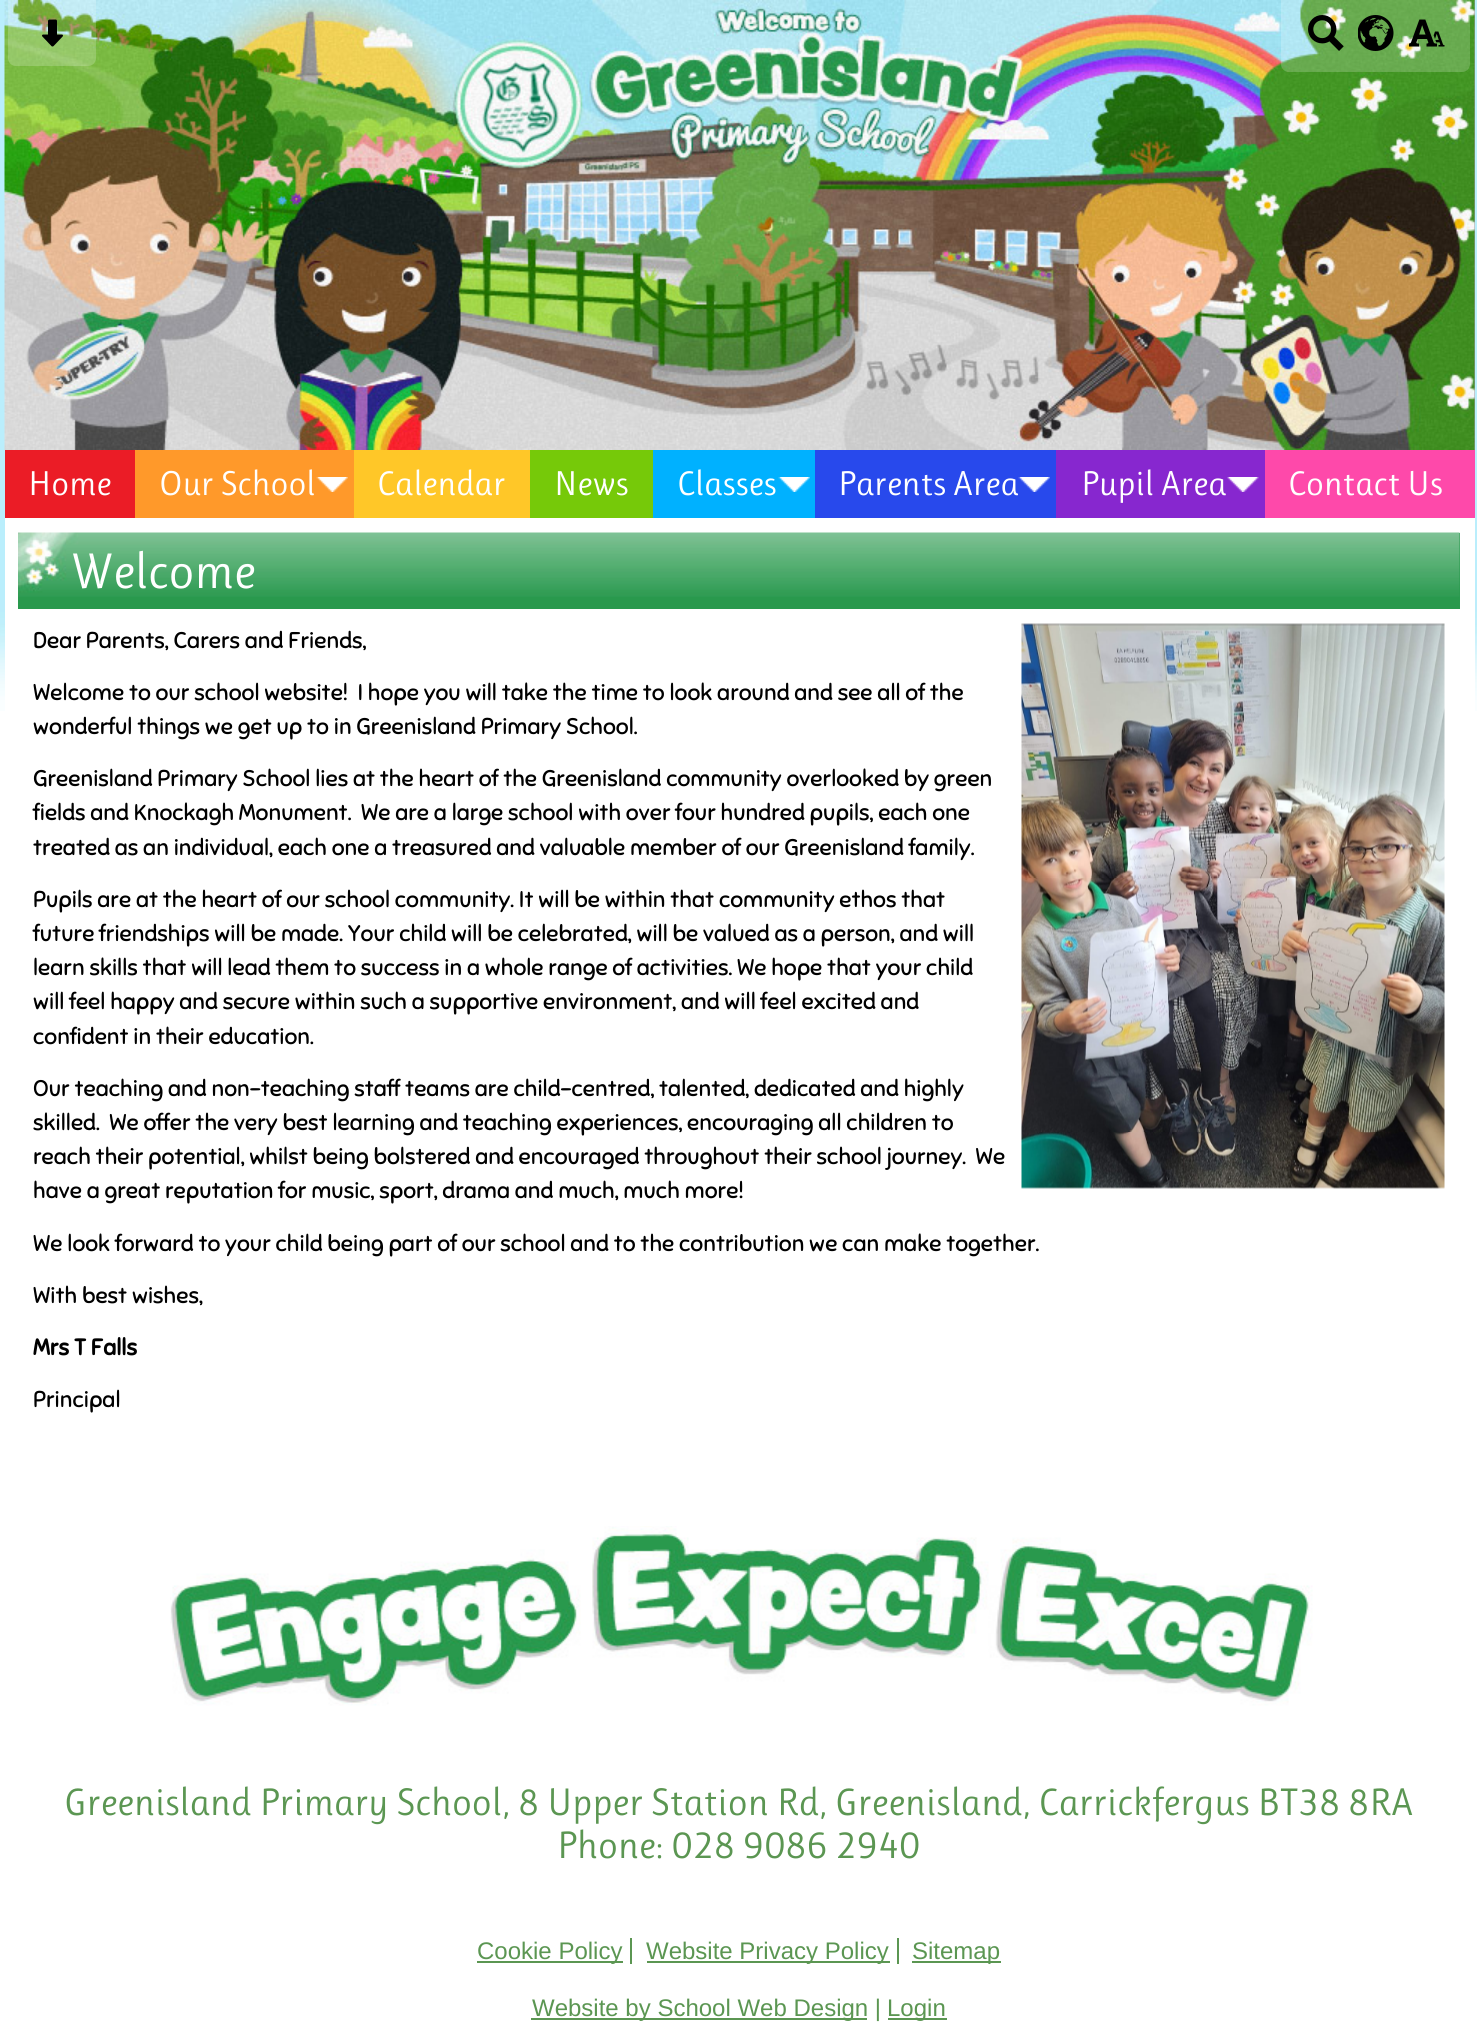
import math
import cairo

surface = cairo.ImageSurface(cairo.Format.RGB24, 1477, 2043)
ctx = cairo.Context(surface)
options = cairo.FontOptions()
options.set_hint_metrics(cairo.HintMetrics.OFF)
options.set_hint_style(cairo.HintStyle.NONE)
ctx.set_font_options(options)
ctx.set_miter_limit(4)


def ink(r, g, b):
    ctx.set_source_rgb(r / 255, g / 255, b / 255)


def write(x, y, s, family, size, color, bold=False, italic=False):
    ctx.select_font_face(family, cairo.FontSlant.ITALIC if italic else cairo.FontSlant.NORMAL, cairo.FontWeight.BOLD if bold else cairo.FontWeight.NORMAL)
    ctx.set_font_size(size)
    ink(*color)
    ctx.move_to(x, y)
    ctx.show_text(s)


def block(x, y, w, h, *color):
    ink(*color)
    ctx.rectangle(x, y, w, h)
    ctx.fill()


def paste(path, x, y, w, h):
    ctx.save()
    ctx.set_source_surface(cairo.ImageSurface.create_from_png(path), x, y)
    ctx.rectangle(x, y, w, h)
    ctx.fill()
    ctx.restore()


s1 = dict(family="Ruluko", size=34.5, color=(255, 255, 255))
s2 = dict(family="Ruluko", size=50, color=(255, 255, 255))
s3 = dict(family="Sniglet", size=22.8, color=(0, 0, 0))
s4 = dict(family="Sniglet", size=22.8, color=(0, 0, 0), bold=True)
s5 = dict(family="Ruluko", size=38.4, color=(91, 150, 82))
s6 = dict(family="Liberation Sans", size=24, color=(91, 150, 82))

ink(255, 255, 255)
ctx.paint()
paste("pic1.png", 0, 0, 1477, 711)
block(1474, 0, 1, 450, 152, 151, 156)
paste("pic6.png", 4, 0, 1471, 450)
ctx.set_source_rgba(1, 1, 1, 0.2)
ctx.new_path()
ctx.move_to(8, 0)
ctx.line_to(96, 0)
ctx.line_to(96, 58)
ctx.curve_to(96, 62.5, 92.5, 66, 88, 66)
ctx.line_to(16, 66)
ctx.curve_to(11.5, 66, 8, 62.5, 8, 58)
ctx.close_path()
ctx.fill()
paste("pic2.png", 42, 19, 21, 28)
ctx.new_path()
ctx.move_to(1281, 0)
ctx.line_to(1470, 0)
ctx.line_to(1470, 64)
ctx.curve_to(1470, 68.5, 1466.5, 72, 1462, 72)
ctx.line_to(1289, 72)
ctx.curve_to(1284.5, 72, 1281, 68.5, 1281, 64)
ctx.close_path()
ctx.fill()
paste("pic3.png", 1308, 15, 36, 36)
paste("pic4.png", 1358, 15, 36, 36)
paste("pic5.png", 1409, 19, 36, 28)
block(1265, 450, 210, 68, 254, 73, 170)
block(5, 450, 130, 68, 235, 28, 38)
write(28, 495, "Home", **s1)
block(135, 450, 219, 68, 255, 153, 42)
paste("pic7.png", 316, 477, 32, 15)
write(159, 495, "Our School", **s1)
block(354, 450, 176, 68, 255, 199, 40)
write(377, 495, "Calendar", **s1)
block(530, 450, 123, 68, 118, 201, 9)
write(554, 495, "News", **s1)
block(653, 450, 162, 68, 0, 177, 255)
paste("pic8.png", 778, 477, 32, 15)
write(677, 495, "Classes", **s1)
block(815, 450, 241, 68, 40, 73, 236)
paste("pic9.png", 1018, 477, 32, 15)
write(838, 495, "Parents Area", **s1)
block(1056, 450, 209, 68, 135, 39, 207)
paste("pic10.png", 1227, 477, 32, 15)
write(1081, 495, "Pupil Area", **s1)
write(1288, 495, "Contact Us", **s1)
block(5, 518, 1470, 193, 255, 255, 255)
block(18, 533, 1442, 76, 41, 153, 77)
paste("pic11.png", 18, 532, 1442, 65)
write(71, 588, "Welcome", **s2)
write(33, 648, "Dear Parents, Carers and Friends,", **s3)
write(33, 700, "Welcome to our school website!  I hope you will take the time to look around and see all of the", **s3)
write(33, 734, "wonderful things we get up to in Greenisland Primary School.", **s3)
write(33, 786, "Greenisland Primary School lies at the heart of the Greenisland community overlooked by green", **s3)
write(33, 820, "fields and Knockagh Monument.  We are a large school with over four hundred pupils, each one", **s3)
write(33, 855, "treated as an individual, each one a treasured and valuable member of our Greenisland family.", **s3)
write(33, 907, "Pupils are at the heart of our school community. It will be within that community ethos that", **s3)
write(33, 941, "future friendships will be made. Your child will be celebrated, will be valued as a person, and will", **s3)
write(33, 975, "learn skills that will lead them to success in a whole range of activities. We hope that your child", **s3)
write(33, 1009, "will feel happy and secure within such a supportive environment, and will feel excited and", **s3)
write(33, 1044, "confident in their education.", **s3)
write(33, 1096, "Our teaching and non-teaching staff teams are child-centred, talented, dedicated and highly", **s3)
write(33, 1130, "skilled.  We offer the very best learning and teaching experiences, encouraging all children to", **s3)
write(33, 1164, "reach their potential, whilst being bolstered and encouraged throughout their school journey.  We", **s3)
write(33, 1198, "have a great reputation for music, sport, drama and much, much more!", **s3)
write(33, 1251, "We look forward to your child being part of our school and to the contribution we can make together.", **s3)
write(33, 1303, "With best wishes,", **s3)
write(33, 1355, "Mrs T Falls", **s4)
write(33, 1407, "Principal", **s3)
paste("pic12.png", 1021, 623, 424, 566)
paste("pic13.png", 170, 1526, 1143, 180)
write(64, 1815, "Greenisland Primary School, 8 Upper Station Rd, Greenisland, Carrickfergus BT38 8RA", **s5)
write(557, 1858, "Phone: 028 9086 2940", **s5)
block(477, 1961, 146, 2, 91, 150, 82)
write(477, 1959, "Cookie Policy", **s6)
block(630, 1938, 2, 26, 91, 150, 82)
block(647, 1961, 243, 2, 91, 150, 82)
write(646, 1959, "Website Privacy Policy", **s6)
block(897, 1938, 2, 26, 91, 150, 82)
block(912, 1961, 89, 2, 91, 150, 82)
write(912, 1959, "Sitemap", **s6)
block(531, 2018, 336, 2, 91, 150, 82)
write(532, 2016, "Website by School Web Design |", **s6)
block(888, 2018, 59, 2, 91, 150, 82)
write(887, 2016, "Login", **s6)
surface.write_to_png("screenshot.png")
